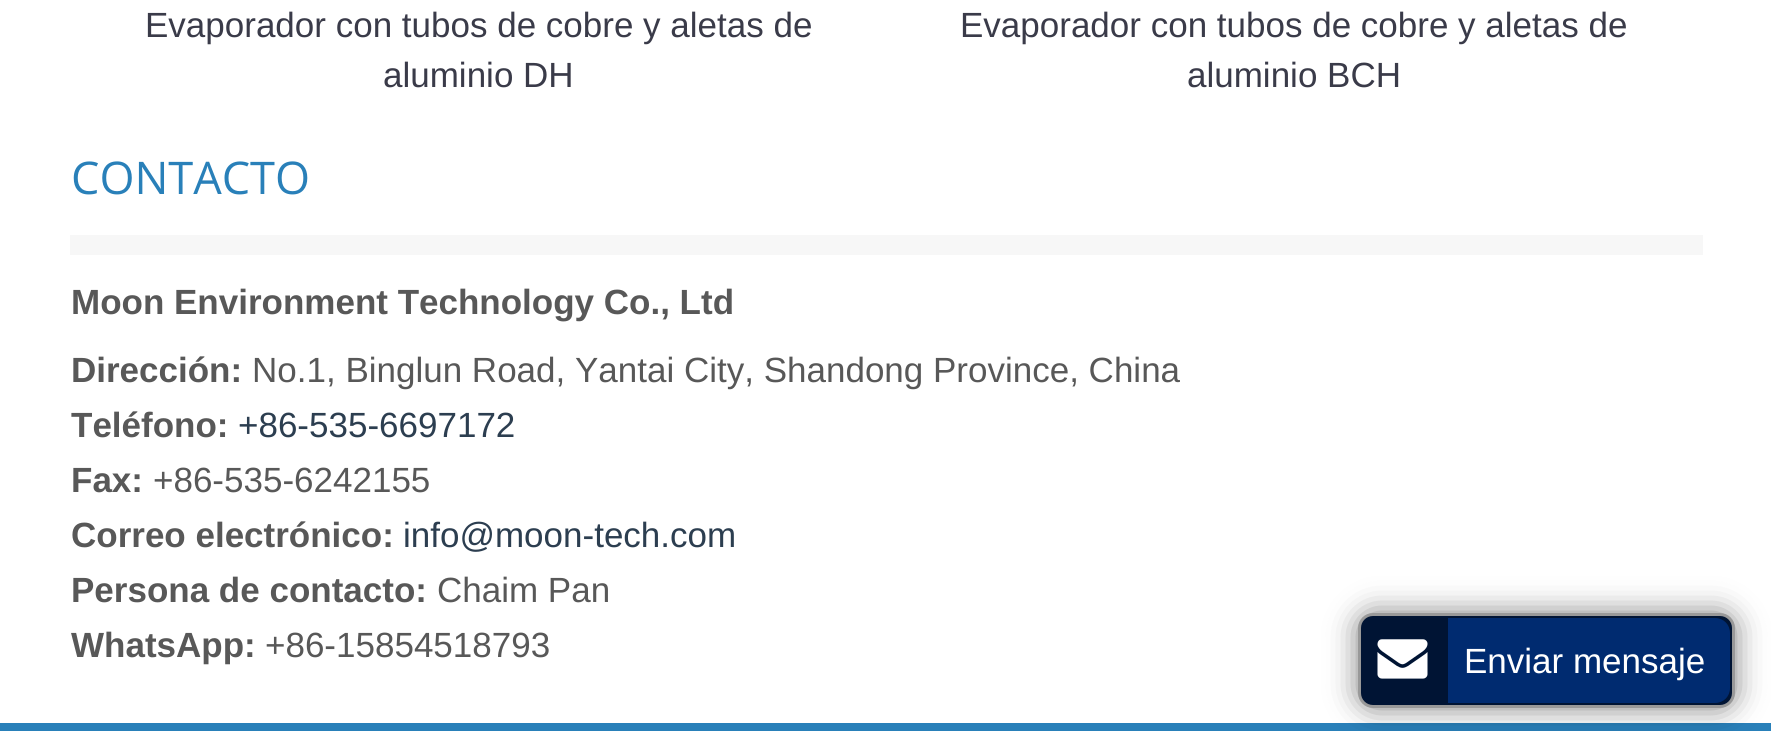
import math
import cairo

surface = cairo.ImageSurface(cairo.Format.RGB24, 1771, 731)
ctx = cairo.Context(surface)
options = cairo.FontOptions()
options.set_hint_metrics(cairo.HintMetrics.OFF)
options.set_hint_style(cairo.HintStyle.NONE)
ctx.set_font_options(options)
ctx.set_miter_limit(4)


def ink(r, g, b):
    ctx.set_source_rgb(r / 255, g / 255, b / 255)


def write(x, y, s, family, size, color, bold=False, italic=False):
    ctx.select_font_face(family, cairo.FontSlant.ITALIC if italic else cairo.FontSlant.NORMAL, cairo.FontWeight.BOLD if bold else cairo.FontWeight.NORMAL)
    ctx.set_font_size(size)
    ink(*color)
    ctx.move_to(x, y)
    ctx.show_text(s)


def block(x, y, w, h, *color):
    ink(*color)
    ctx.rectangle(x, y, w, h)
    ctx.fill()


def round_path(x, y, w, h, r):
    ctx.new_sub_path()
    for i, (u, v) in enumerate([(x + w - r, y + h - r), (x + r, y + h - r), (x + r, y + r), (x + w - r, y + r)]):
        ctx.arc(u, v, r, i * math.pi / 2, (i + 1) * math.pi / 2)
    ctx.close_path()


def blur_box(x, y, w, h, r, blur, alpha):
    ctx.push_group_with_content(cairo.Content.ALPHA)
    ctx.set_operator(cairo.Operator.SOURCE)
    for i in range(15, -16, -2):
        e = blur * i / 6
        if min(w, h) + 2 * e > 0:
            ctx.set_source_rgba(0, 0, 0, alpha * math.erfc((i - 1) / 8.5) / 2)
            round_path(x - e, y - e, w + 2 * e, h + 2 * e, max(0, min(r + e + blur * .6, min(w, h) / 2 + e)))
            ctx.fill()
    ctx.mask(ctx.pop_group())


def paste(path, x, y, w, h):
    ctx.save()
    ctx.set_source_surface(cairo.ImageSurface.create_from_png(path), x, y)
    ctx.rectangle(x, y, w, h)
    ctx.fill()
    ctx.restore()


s1 = dict(family="Liberation Sans", size=35, color=(58, 59, 73))
s2 = dict(family="Open Sans", size=45, color=(41, 128, 185))
s3 = dict(family="Liberation Sans", size=35, color=(88, 88, 88), bold=True)
s4 = dict(family="Liberation Sans", size=35, color=(88, 88, 88))
s5 = dict(family="Liberation Sans", size=35, color=(44, 62, 80))
s6 = dict(family="Liberation Sans", size=35, color=(255, 255, 255))

ink(255, 255, 255)
ctx.paint()
write(145, 37, "Evaporador con tubos de cobre y aletas de", **s1)
write(383, 87, "aluminio DH", **s1)
write(960, 37, "Evaporador con tubos de cobre y aletas de", **s1)
write(1187, 87, "aluminio BCH", **s1)
write(71, 194, "CONTACTO", **s2)
block(70, 235, 1633, 20, 247, 247, 247)
write(71, 314, "Moon Environment Technology Co., Ltd", **s3)
write(71, 382, "Dirección:", **s3)
write(252, 382, "No.1, Binglun Road, Yantai City, Shandong Province, China", **s4)
write(71, 437, "Teléfono:", **s3)
write(238, 437, "+86-535-6697172", **s5)
write(71, 492, "Fax:", **s3)
write(153, 492, "+86-535-6242155", **s4)
write(71, 547, "Correo electrónico:", **s3)
write(403, 547, "info@moon-tech.com", **s5)
write(71, 602, "Persona de contacto:", **s3)
write(437, 602, "Chaim Pan", **s4)
write(71, 657, "WhatsApp:", **s3)
write(265, 657, "+86-15854518793", **s4)
block(0, 723, 1771, 8, 41, 128, 185)
ink(0, 0, 0)
blur_box(1358, 613, 377, 95, 15, 15, 0.5)
ink(0, 20, 52)
round_path(1359.5, 614.5, 374, 92, 13.5)
ctx.fill_preserve()
ink(153, 153, 153)
ctx.set_line_width(3)
ctx.stroke()
paste("pic1.png", 1377, 639, 51, 40)
ink(0, 43, 112)
ctx.new_path()
ctx.move_to(1448, 618)
ctx.line_to(1715, 618)
ctx.curve_to(1723.5, 618, 1730, 624.5, 1730, 633)
ctx.line_to(1730, 688)
ctx.curve_to(1730, 696.5, 1723.5, 703, 1715, 703)
ctx.line_to(1448, 703)
ctx.close_path()
ctx.fill()
write(1464, 673, "Enviar mensaje", **s6)
surface.write_to_png("screenshot.png")
